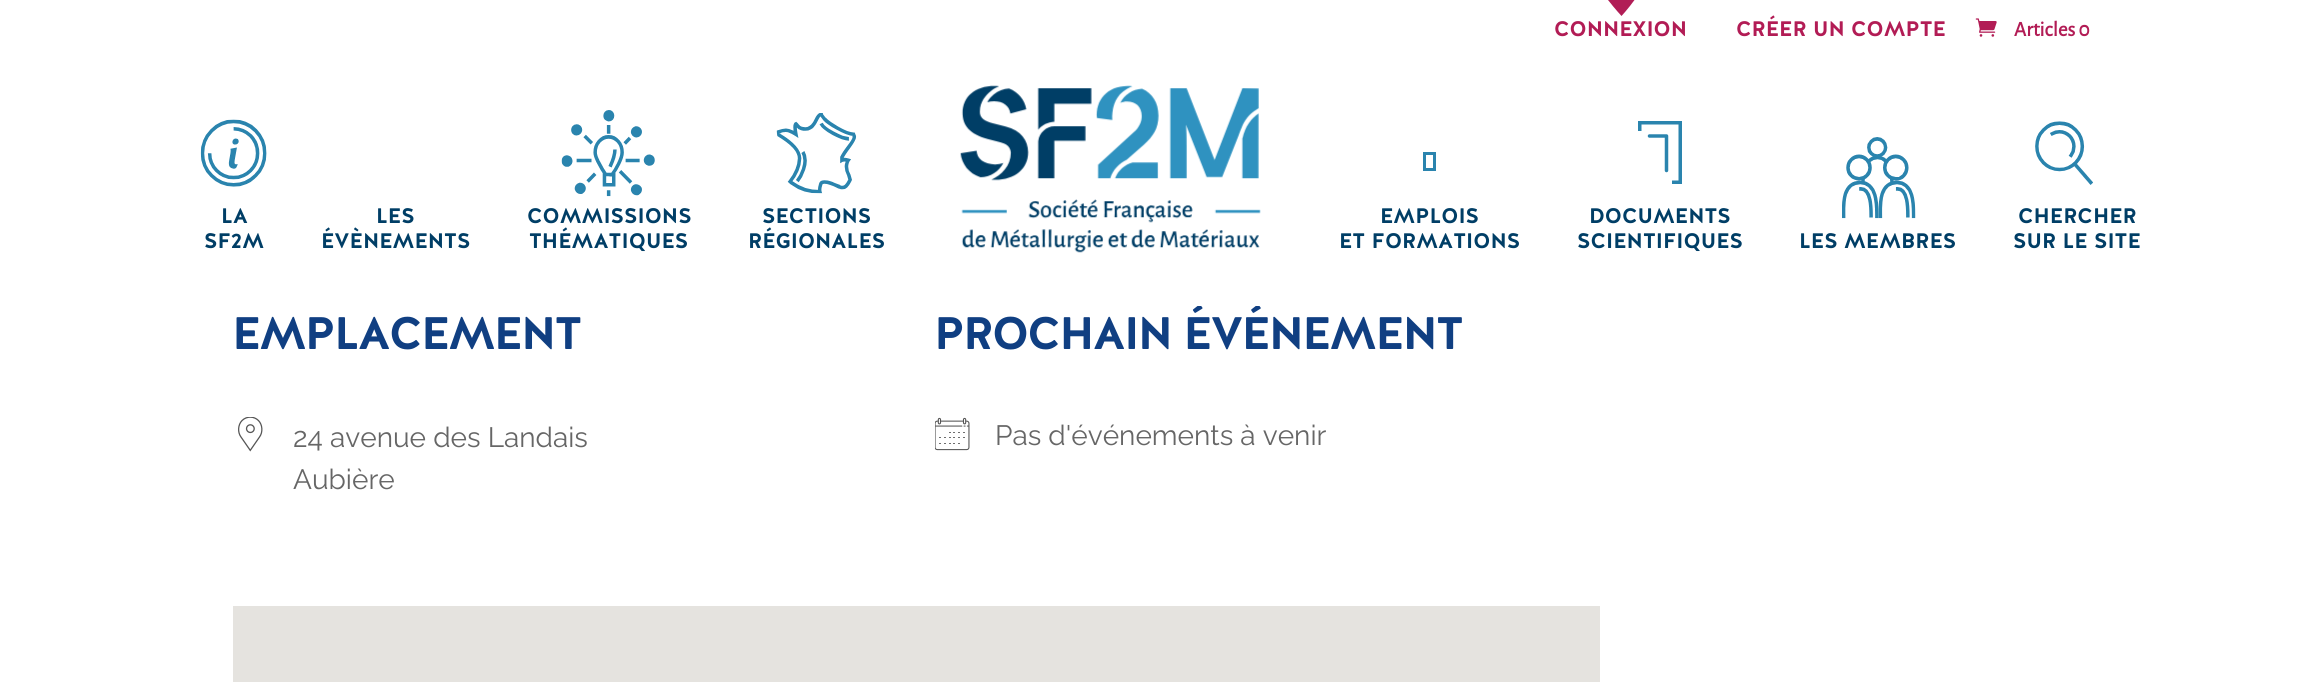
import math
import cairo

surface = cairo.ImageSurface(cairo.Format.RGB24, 2321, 682)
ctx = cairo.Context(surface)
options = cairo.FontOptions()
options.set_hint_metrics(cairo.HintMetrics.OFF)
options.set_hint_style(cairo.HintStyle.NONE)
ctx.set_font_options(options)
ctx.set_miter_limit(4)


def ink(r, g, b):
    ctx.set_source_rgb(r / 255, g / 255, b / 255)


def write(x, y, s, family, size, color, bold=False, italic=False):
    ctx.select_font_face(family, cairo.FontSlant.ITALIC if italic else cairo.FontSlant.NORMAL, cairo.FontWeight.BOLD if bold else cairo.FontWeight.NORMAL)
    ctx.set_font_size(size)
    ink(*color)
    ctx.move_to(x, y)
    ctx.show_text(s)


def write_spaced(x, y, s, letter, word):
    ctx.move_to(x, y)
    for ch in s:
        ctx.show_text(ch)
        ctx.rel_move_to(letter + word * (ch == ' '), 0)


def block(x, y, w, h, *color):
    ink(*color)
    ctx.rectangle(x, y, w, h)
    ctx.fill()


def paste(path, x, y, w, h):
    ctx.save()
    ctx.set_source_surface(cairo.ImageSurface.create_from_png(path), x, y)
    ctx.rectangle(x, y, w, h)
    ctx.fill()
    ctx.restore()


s1 = dict(family="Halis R", size=21, color=(178, 28, 85), bold=True)
s2 = dict(family="Alegreya Sans", size=21, color=(178, 28, 85), bold=True)
s3 = dict(family="Halis R", size=21, color=(0, 62, 102), bold=True)
s4 = dict(family="Raleway", size=28, color=(102, 102, 102))

ink(255, 255, 255)
ctx.paint()
ink(177, 29, 86)
ctx.new_path()
ctx.move_to(1621.5, 16)
ctx.curve_to(1621.5, 16, 1628, 9, 1634.5, 0)
ctx.line_to(1608, 0)
ctx.curve_to(1615, 9, 1621.5, 16, 1621.5, 16)
ctx.close_path()
ctx.fill()
write(1554, 36, "CONNEXION", **s1)
write(1736, 36, "CRÉER UN COMPTE", **s1)
paste("pic1.png", 1975, 18, 22, 19)
write(2014, 36, "Articles 0", **s2)
ctx.select_font_face("Halis R", cairo.FontSlant.NORMAL, cairo.FontWeight.BOLD)
ctx.set_font_size(45.5)
ink(16, 63, 130)
write_spaced(934, 349, "PROCHAIN ÉVÉNEMENT", -1.75, 0)
block(1197, 304, 63, 2, 255, 255, 255)
paste("pic2.png", 200, 119, 67, 68)
write(221, 223, "LA", **s3)
write(204, 248, "SF2M", **s3)
write(376, 223, "LES", **s3)
write(321, 248, "ÉVÈNEMENTS", **s3)
paste("pic3.png", 561, 110, 94, 87)
write(527, 223, "COMMISSIONS", **s3)
write(529, 248, "THÉMATIQUES", **s3)
paste("pic4.png", 776, 113, 81, 81)
write(762, 223, "SECTIONS", **s3)
write(748, 248, "RÉGIONALES", **s3)
paste("pic5.png", 960, 85, 301, 168)
ctx.rectangle(1424.5, 153.5, 10, 16)
ink(42, 132, 174)
ctx.set_line_width(3)
ctx.stroke()
write(1380, 223, "EMPLOIS", **s3)
write(1339, 248, "ET FORMATIONS", **s3)
ctx.rectangle(1639.75, 122.75, 40.5, 59.5)
ink(42, 132, 174)
ctx.set_line_width(3.5)
ctx.stroke()
block(1638, 131, 34, 53, 255, 255, 255)
ctx.new_path()
ctx.move_to(1649.5, 136)
ctx.line_to(1666.5, 136)
ctx.line_to(1666.5, 170.5)
ink(42, 132, 174)
ctx.set_line_cap(cairo.LineCap.ROUND)
ctx.set_line_join(cairo.LineJoin.ROUND)
ctx.stroke()
write(1589, 223, "DOCUMENTS", **s3)
write(1577, 248, "SCIENTIFIQUES", **s3)
paste("pic6.png", 1842, 137, 74, 82)
write(1799, 248, "LES MEMBRES", **s3)
paste("pic7.png", 2035, 121, 58, 64)
write(2018, 223, "CHERCHER", **s3)
write(2013, 248, "SUR LE SITE", **s3)
ctx.set_font_size(45.5)
ink(16, 63, 130)
write_spaced(232, 349, "EMPLACEMENT", -1.75, 0)
paste("pic8.png", 238, 417, 25, 35)
write(293, 447, "24 avenue des Landais", **s4)
write(293, 489, "Aubière", **s4)
paste("pic9.png", 935, 417, 35, 34)
write(995, 445, "Pas d'événements à venir", **s4)
block(233, 606, 1367, 76, 229, 227, 223)
surface.write_to_png("screenshot.png")
